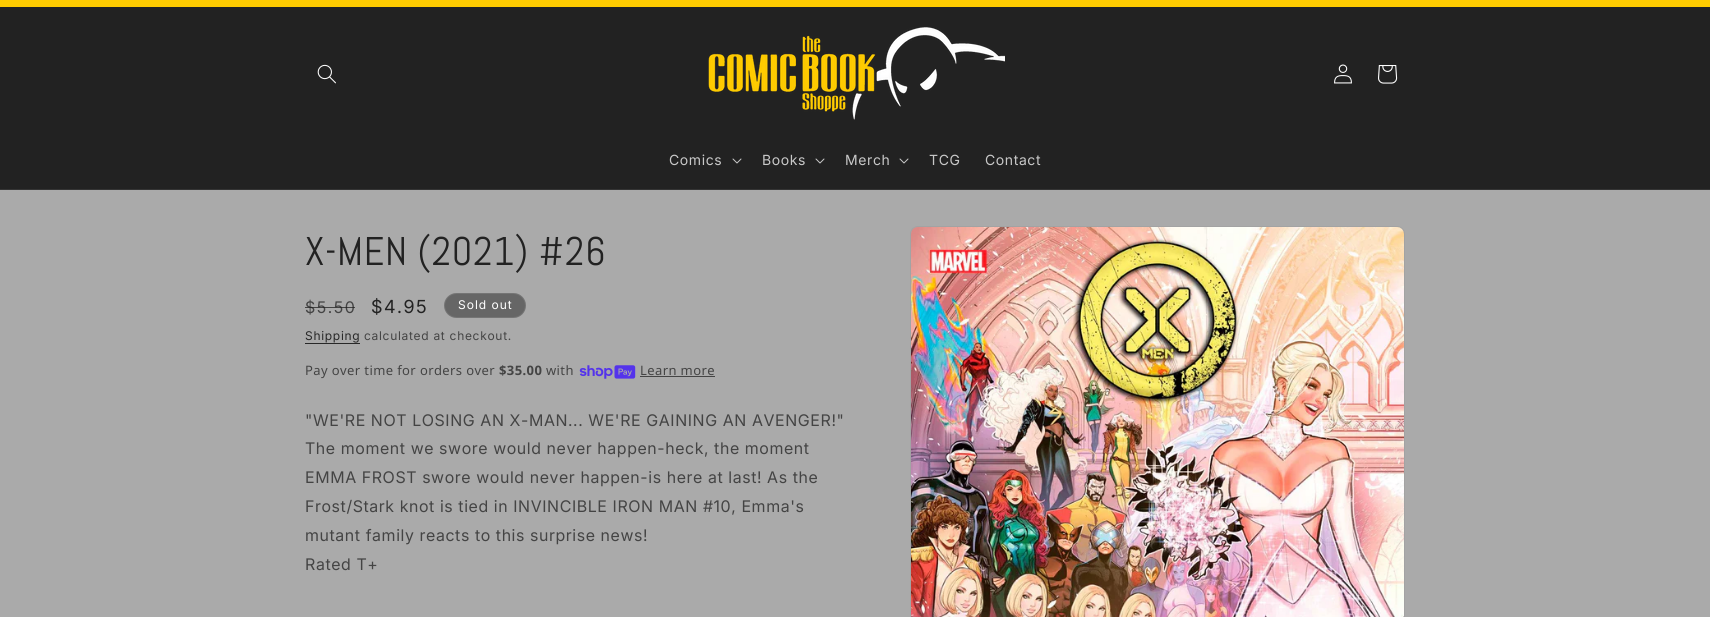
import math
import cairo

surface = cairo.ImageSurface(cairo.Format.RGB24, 1710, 617)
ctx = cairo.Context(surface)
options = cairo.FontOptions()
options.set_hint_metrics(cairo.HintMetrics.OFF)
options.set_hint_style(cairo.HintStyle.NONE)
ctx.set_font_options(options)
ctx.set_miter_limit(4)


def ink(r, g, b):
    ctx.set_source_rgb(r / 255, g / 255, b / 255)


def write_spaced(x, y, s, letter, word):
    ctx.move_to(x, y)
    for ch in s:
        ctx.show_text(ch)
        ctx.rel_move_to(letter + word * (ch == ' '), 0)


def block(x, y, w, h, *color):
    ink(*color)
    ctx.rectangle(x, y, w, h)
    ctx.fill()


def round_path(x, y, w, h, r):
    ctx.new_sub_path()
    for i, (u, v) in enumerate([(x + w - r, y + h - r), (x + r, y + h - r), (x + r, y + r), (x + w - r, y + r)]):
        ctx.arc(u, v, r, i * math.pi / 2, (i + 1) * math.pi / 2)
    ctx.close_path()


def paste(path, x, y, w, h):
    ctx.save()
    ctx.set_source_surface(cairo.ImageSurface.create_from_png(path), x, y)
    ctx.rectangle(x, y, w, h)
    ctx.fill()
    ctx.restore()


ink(170, 170, 170)
ctx.paint()
block(0, 0, 1710, 7, 255, 204, 0)
block(0, 7, 1710, 182, 34, 34, 34)
block(0, 189, 1710, 1, 52, 52, 52)
paste("pic1.png", 317, 64, 19, 20)
paste("pic2.png", 708, 27, 297, 93)
paste("pic3.png", 1334, 64, 18, 20)
paste("pic4.png", 1378, 65, 20, 19)
ctx.select_font_face("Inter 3")
ctx.set_font_size(14)
ink(200, 200, 200)
write_spaced(669, 165, "Comics", 0.6, 0)
paste("pic5.png", 732, 158, 10, 6)
write_spaced(762, 165, "Books", 0.6, 0)
paste("pic5.png", 815, 158, 10, 6)
write_spaced(845, 165, "Merch", 0.6, 0)
paste("pic5.png", 899, 158, 10, 6)
write_spaced(929, 165, "TCG", 0.6, 0)
write_spaced(985, 165, "Contact", 0.6, 0)
ctx.select_font_face("Abel")
ctx.set_font_size(40)
ink(34, 34, 34)
write_spaced(305, 265, "X-MEN (2021) #26", 0.6, 0)
ctx.select_font_face("Inter")
ctx.set_font_size(16)
ink(68, 68, 68)
write_spaced(305, 313, "$5.50", 1.5, 0)
ctx.set_source_rgba(0.133, 0.133, 0.133, 0.75)
ctx.rectangle(305, 307, 50, 1)
ctx.fill()
ctx.select_font_face("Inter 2")
ctx.set_font_size(18)
ink(34, 34, 34)
write_spaced(371, 313, "$4.95", 1.5, 0)
ink(102, 102, 102)
round_path(444, 293, 82, 25, 12.5)
ctx.fill()
round_path(444.5, 293.5, 81, 24, 12)
ctx.set_source_rgba(1, 1, 1, 0.1)
ctx.set_line_width(1)
ctx.stroke()
ctx.select_font_face("Inter 3")
ctx.set_font_size(12)
ink(255, 255, 255)
write_spaced(458, 309, "Sold out", 1, 0)
ink(40, 40, 40)
write_spaced(305, 340, "Shipping", 0.7, 0)
block(305, 343, 55, 1, 40, 40, 40)
ink(68, 68, 68)
write_spaced(364, 340, "calculated at checkout.", 0.7, 0)
ctx.select_font_face("Noto Sans")
ctx.set_font_size(13)
write_spaced(305, 375, "Pay over time for orders over", 0.4, 0)
ctx.select_font_face("Noto Sans", cairo.FontSlant.NORMAL, cairo.FontWeight.BOLD)
write_spaced(499, 375, "$35.00", 0.4, 0)
ctx.select_font_face("Noto Sans")
write_spaced(546, 375, "with", 0.4, 0)
paste("pic6.png", 579, 365, 57, 14)
write_spaced(640, 375, "Learn more", 0.4, 0)
block(640, 376, 75, 1, 68, 68, 68)
ctx.select_font_face("Inter")
ctx.set_font_size(16)
write_spaced(305, 426, "\"WE'RE NOT LOSING AN X-MAN... WE'RE GAINING AN AVENGER!\"", 0.6, 0)
write_spaced(305, 454, "The moment we swore would never happen-heck, the moment", 0.6, 0)
write_spaced(305, 483, "EMMA FROST swore would never happen-is here at last! As the", 0.6, 0)
write_spaced(305, 512, "Frost/Stark knot is tied in INVINCIBLE IRON MAN #10, Emma's", 0.6, 0)
write_spaced(305, 541, "mutant family reacts to this surprise news!", 0.6, 0)
write_spaced(305, 570, "Rated T+", 0.6, 0)
round_path(910.5, 226.5, 494, 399, 7.5)
ink(163, 163, 163)
ctx.stroke()
paste("pic7.png", 911, 227, 493, 390)
surface.write_to_png("screenshot.png")
